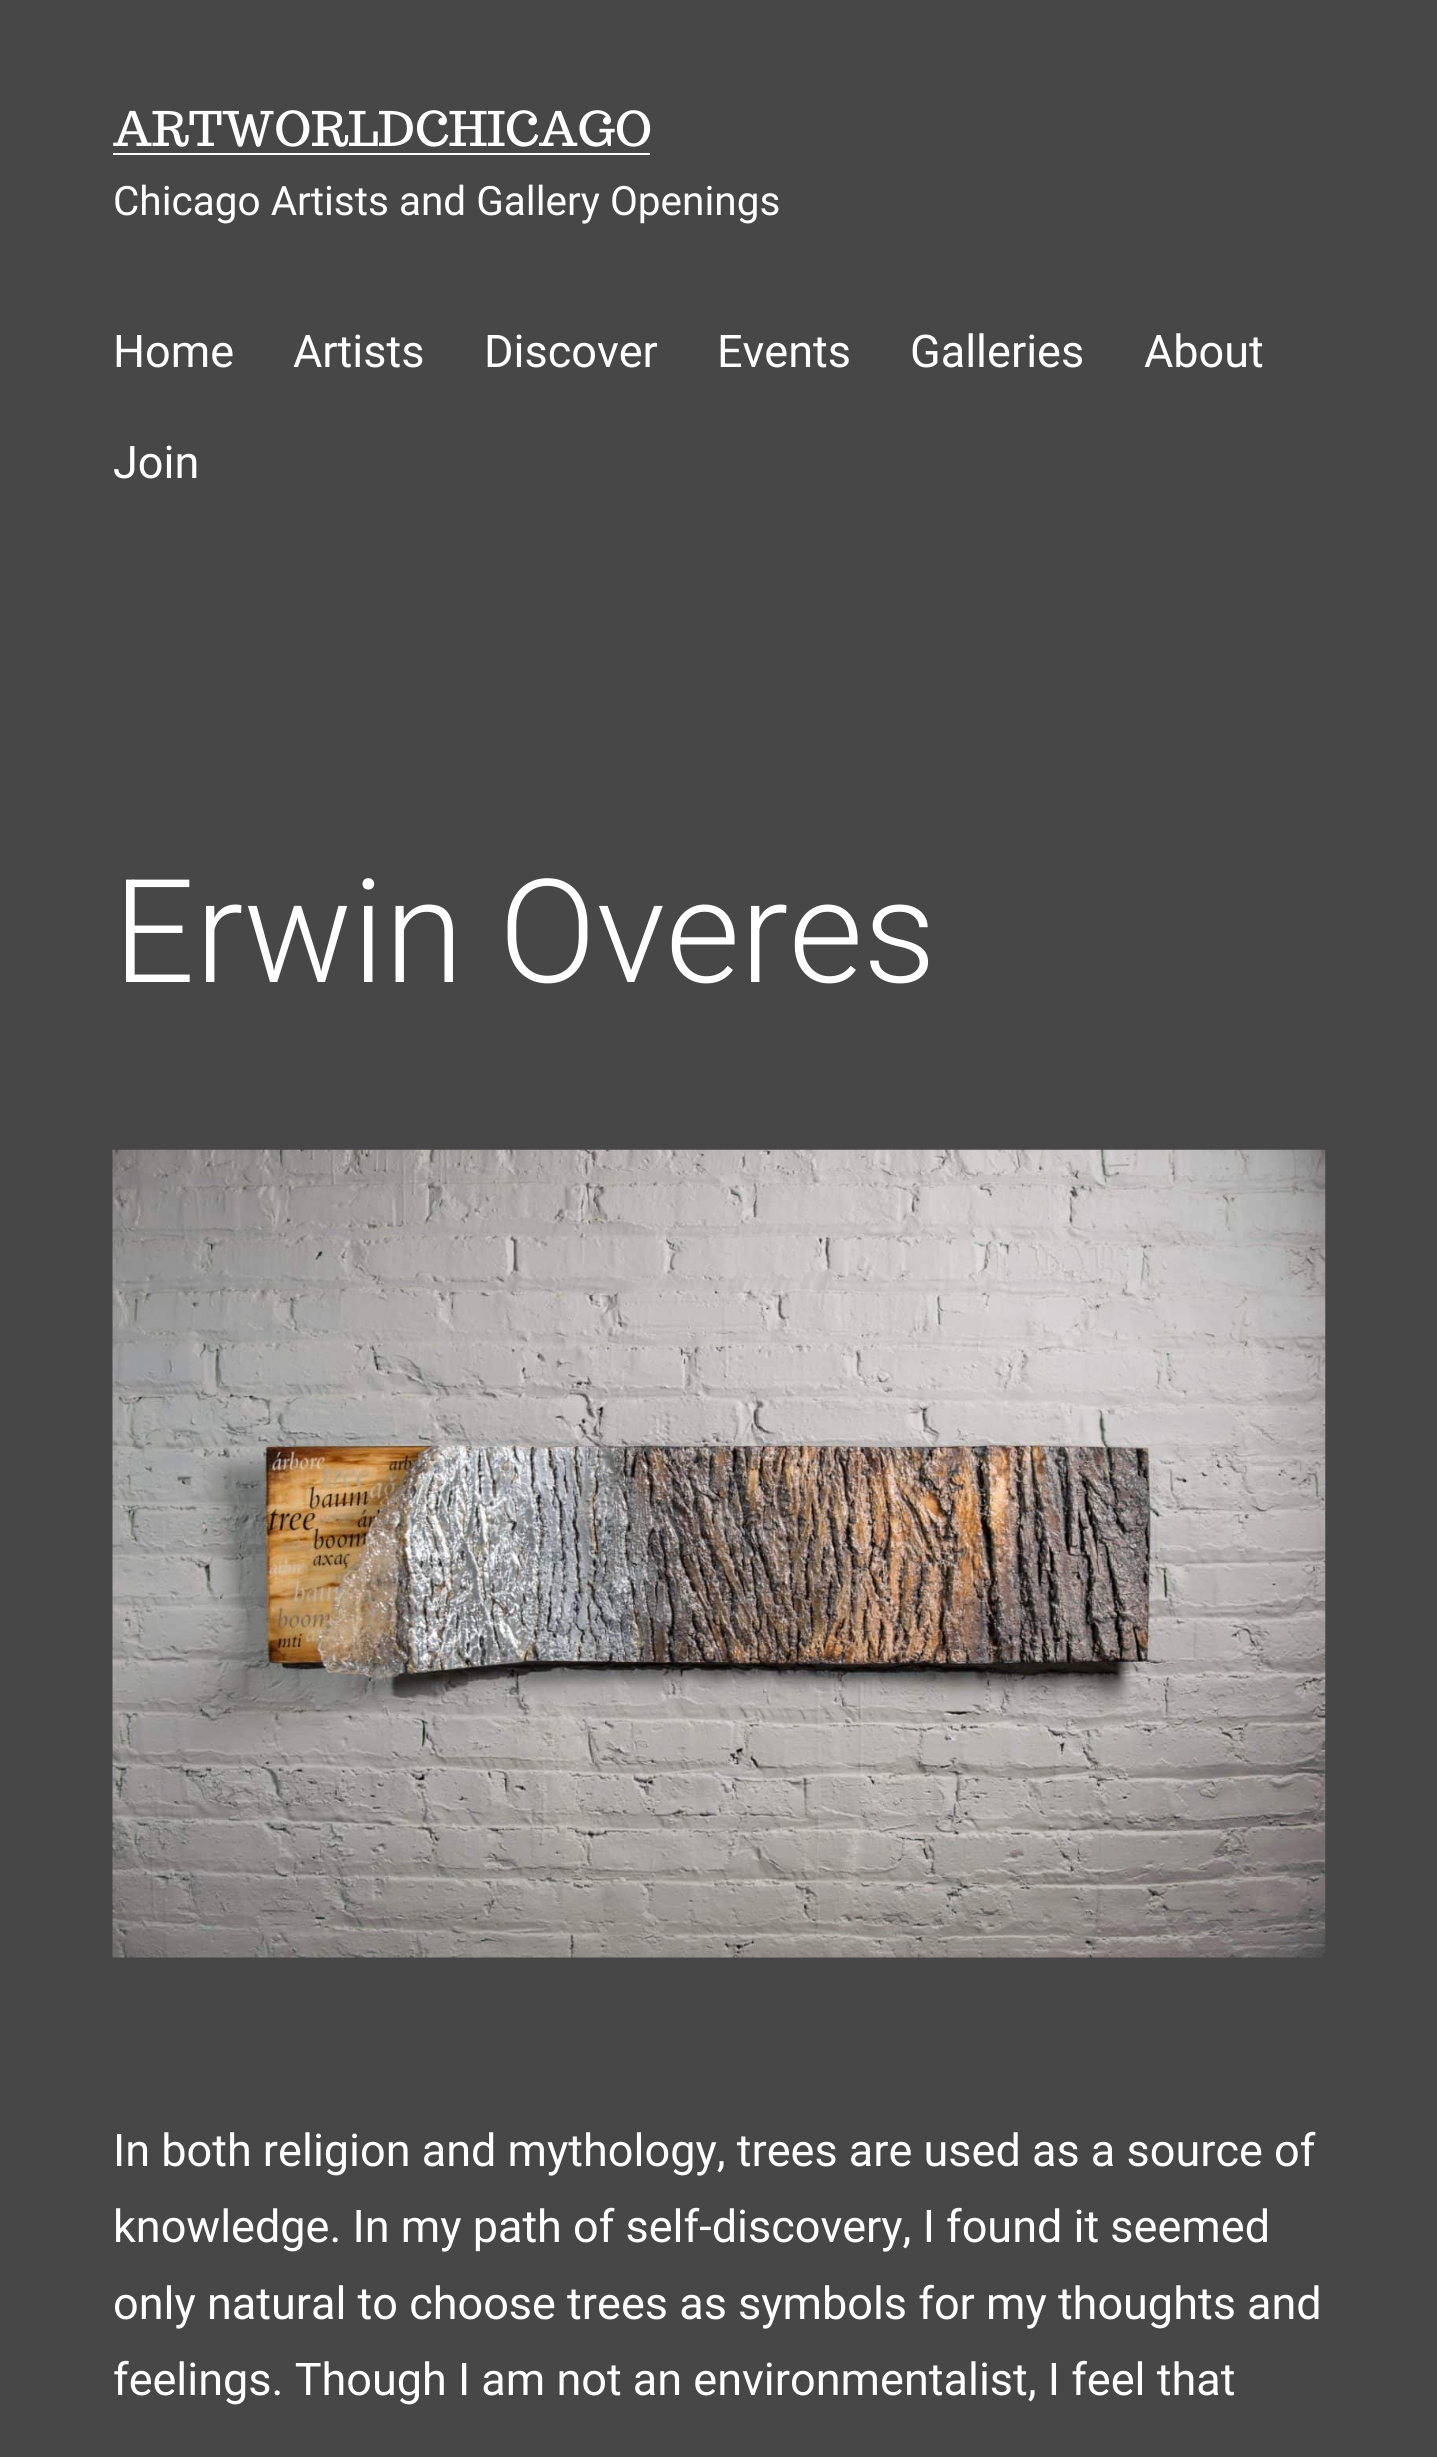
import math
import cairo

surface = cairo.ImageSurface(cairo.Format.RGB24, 1437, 2457)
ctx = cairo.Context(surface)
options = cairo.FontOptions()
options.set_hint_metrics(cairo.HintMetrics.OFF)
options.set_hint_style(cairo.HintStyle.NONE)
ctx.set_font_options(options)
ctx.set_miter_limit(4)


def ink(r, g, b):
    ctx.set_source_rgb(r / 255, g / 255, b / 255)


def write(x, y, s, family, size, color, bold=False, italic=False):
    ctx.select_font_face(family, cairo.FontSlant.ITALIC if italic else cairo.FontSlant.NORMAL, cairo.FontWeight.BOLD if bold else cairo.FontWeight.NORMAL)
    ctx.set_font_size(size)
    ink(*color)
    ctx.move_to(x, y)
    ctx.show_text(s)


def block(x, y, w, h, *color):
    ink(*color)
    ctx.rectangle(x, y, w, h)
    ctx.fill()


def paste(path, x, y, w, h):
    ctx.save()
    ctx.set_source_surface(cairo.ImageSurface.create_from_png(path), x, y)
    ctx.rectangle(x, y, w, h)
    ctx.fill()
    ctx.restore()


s1 = dict(family="Trocchi", size=47.75, color=(255, 255, 255))
s2 = dict(family="Roboto", size=40.5, color=(255, 255, 255))
s3 = dict(family="Roboto", size=45, color=(255, 255, 255))
s4 = dict(family="Roboto Light", size=144, color=(255, 255, 255))

ink(71, 71, 71)
ctx.paint()
write(113, 146, "ARTWORLDCHICAGO", **s1)
block(113, 153, 537, 2, 255, 255, 255)
write(113, 215, "Chicago Artists and Gallery Openings", **s2)
write(113, 367, "Home", **s3)
write(293, 367, "Artists", **s3)
write(484, 367, "Discover", **s3)
write(717, 367, "Events", **s3)
write(910, 367, "Galleries", **s3)
write(1144, 367, "About", **s3)
write(113, 478, "Join", **s3)
write(113, 982, "Erwin Overes", **s4)
paste("pic1.png", 112, 1149, 1214, 809)
write(113, 2166, "In both religion and mythology, trees are used as a source of", **s3)
write(113, 2242, "knowledge. In my path of self-discovery, I found it seemed", **s3)
write(113, 2319, "only natural to choose trees as symbols for my thoughts and", **s3)
write(113, 2395, "feelings. Though I am not an environmentalist, I feel that", **s3)
surface.write_to_png("screenshot.png")
